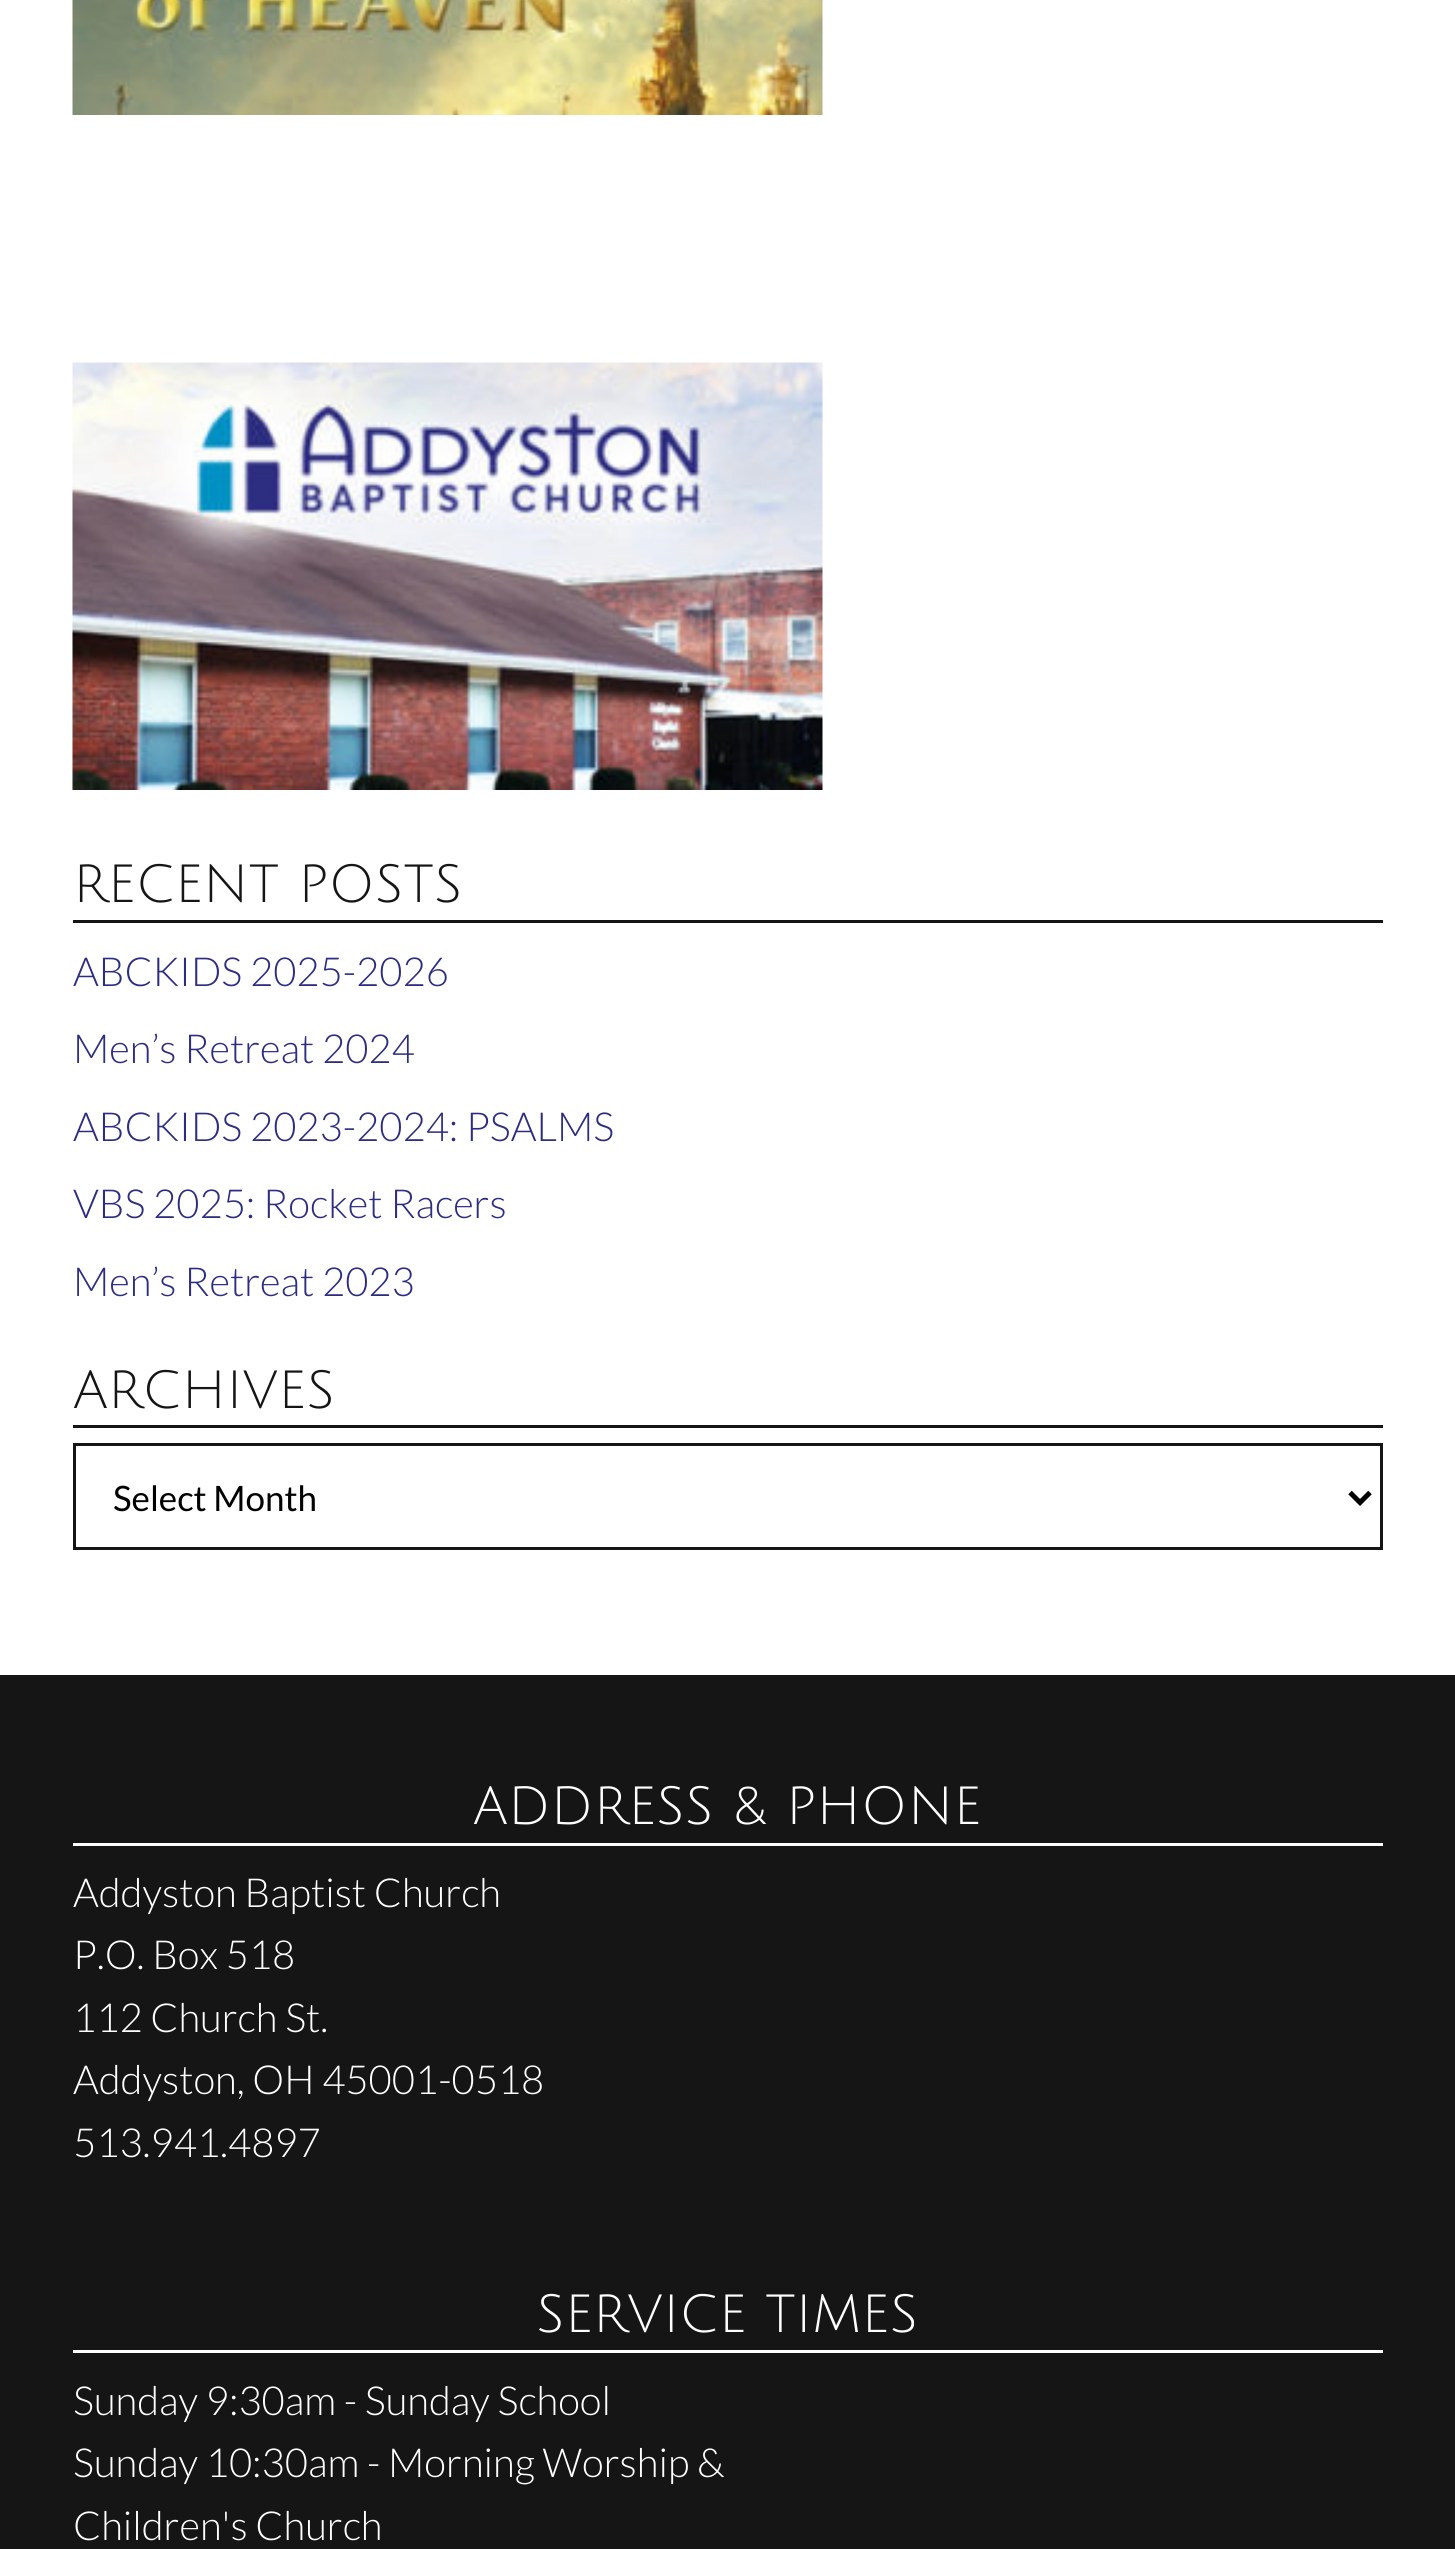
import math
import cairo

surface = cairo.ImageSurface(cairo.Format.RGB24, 1455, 2549)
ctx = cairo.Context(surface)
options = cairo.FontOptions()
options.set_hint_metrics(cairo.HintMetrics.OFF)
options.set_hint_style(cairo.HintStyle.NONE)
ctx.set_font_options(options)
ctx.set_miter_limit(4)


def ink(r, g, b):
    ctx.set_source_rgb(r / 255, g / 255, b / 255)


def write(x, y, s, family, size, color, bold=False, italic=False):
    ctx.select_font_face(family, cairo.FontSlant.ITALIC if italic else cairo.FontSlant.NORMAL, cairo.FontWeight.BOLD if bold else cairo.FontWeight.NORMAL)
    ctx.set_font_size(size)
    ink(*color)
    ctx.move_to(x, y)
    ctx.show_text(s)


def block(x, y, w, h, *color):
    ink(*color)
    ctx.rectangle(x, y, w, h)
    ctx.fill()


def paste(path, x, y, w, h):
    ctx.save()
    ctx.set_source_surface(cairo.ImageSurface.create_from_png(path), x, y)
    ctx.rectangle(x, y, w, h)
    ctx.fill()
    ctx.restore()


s1 = dict(family="Julius Sans One", size=52.5, color=(21, 21, 21))
s2 = dict(family="Lato Light", size=40, color=(45, 45, 128))
s3 = dict(family="Lato", size=35, color=(0, 0, 0))
s4 = dict(family="Julius Sans One", size=52.5, color=(255, 255, 255))
s5 = dict(family="Lato Light", size=40, color=(255, 255, 255))

ink(255, 255, 255)
ctx.paint()
paste("pic1.png", 72, 0, 751, 115)
paste("pic2.png", 72, 362, 751, 428)
block(73, 920, 1310, 3, 21, 21, 21)
write(73, 902, "RECENT POSTS", **s1)
write(73, 986, "ABCKIDS 2025-2026", **s2)
write(73, 1063, "Men’s Retreat 2024", **s2)
write(73, 1141, "ABCKIDS 2023-2024: PSALMS", **s2)
write(73, 1218, "VBS 2025: Rocket Racers", **s2)
write(73, 1296, "Men’s Retreat 2023", **s2)
block(73, 1425, 1310, 3, 21, 21, 21)
write(73, 1408, "ARCHIVES", **s1)
ctx.rectangle(74.5, 1444.5, 1307, 104)
ctx.set_line_width(3)
ctx.stroke()
ctx.new_path()
ctx.move_to(1350, 1492.5)
ctx.line_to(1360, 1502.5)
ctx.line_to(1370, 1492.5)
ink(0, 0, 0)
ctx.set_line_width(5)
ctx.stroke()
write(113, 1511, "Select Month", **s3)
block(0, 1675, 1455, 874, 21, 21, 22)
block(73, 1843, 1310, 3, 255, 255, 255)
write(473, 1824, "ADDRESS & PHONE", **s4)
write(73, 1907, "Addyston Baptist Church", **s5)
write(73, 1969, "P.O. Box 518", **s5)
write(73, 2032, "112 Church St.", **s5)
write(73, 2094, "Addyston, OH 45001-0518", **s5)
write(73, 2157, "513.941.4897", **s5)
block(73, 2350, 1310, 3, 255, 255, 255)
write(536, 2332, "SERVICE TIMES", **s4)
write(73, 2415, "Sunday 9:30am - Sunday School", **s5)
write(73, 2477, "Sunday 10:30am - Morning Worship &", **s5)
write(73, 2540, "Children's Church", **s5)
surface.write_to_png("screenshot.png")
